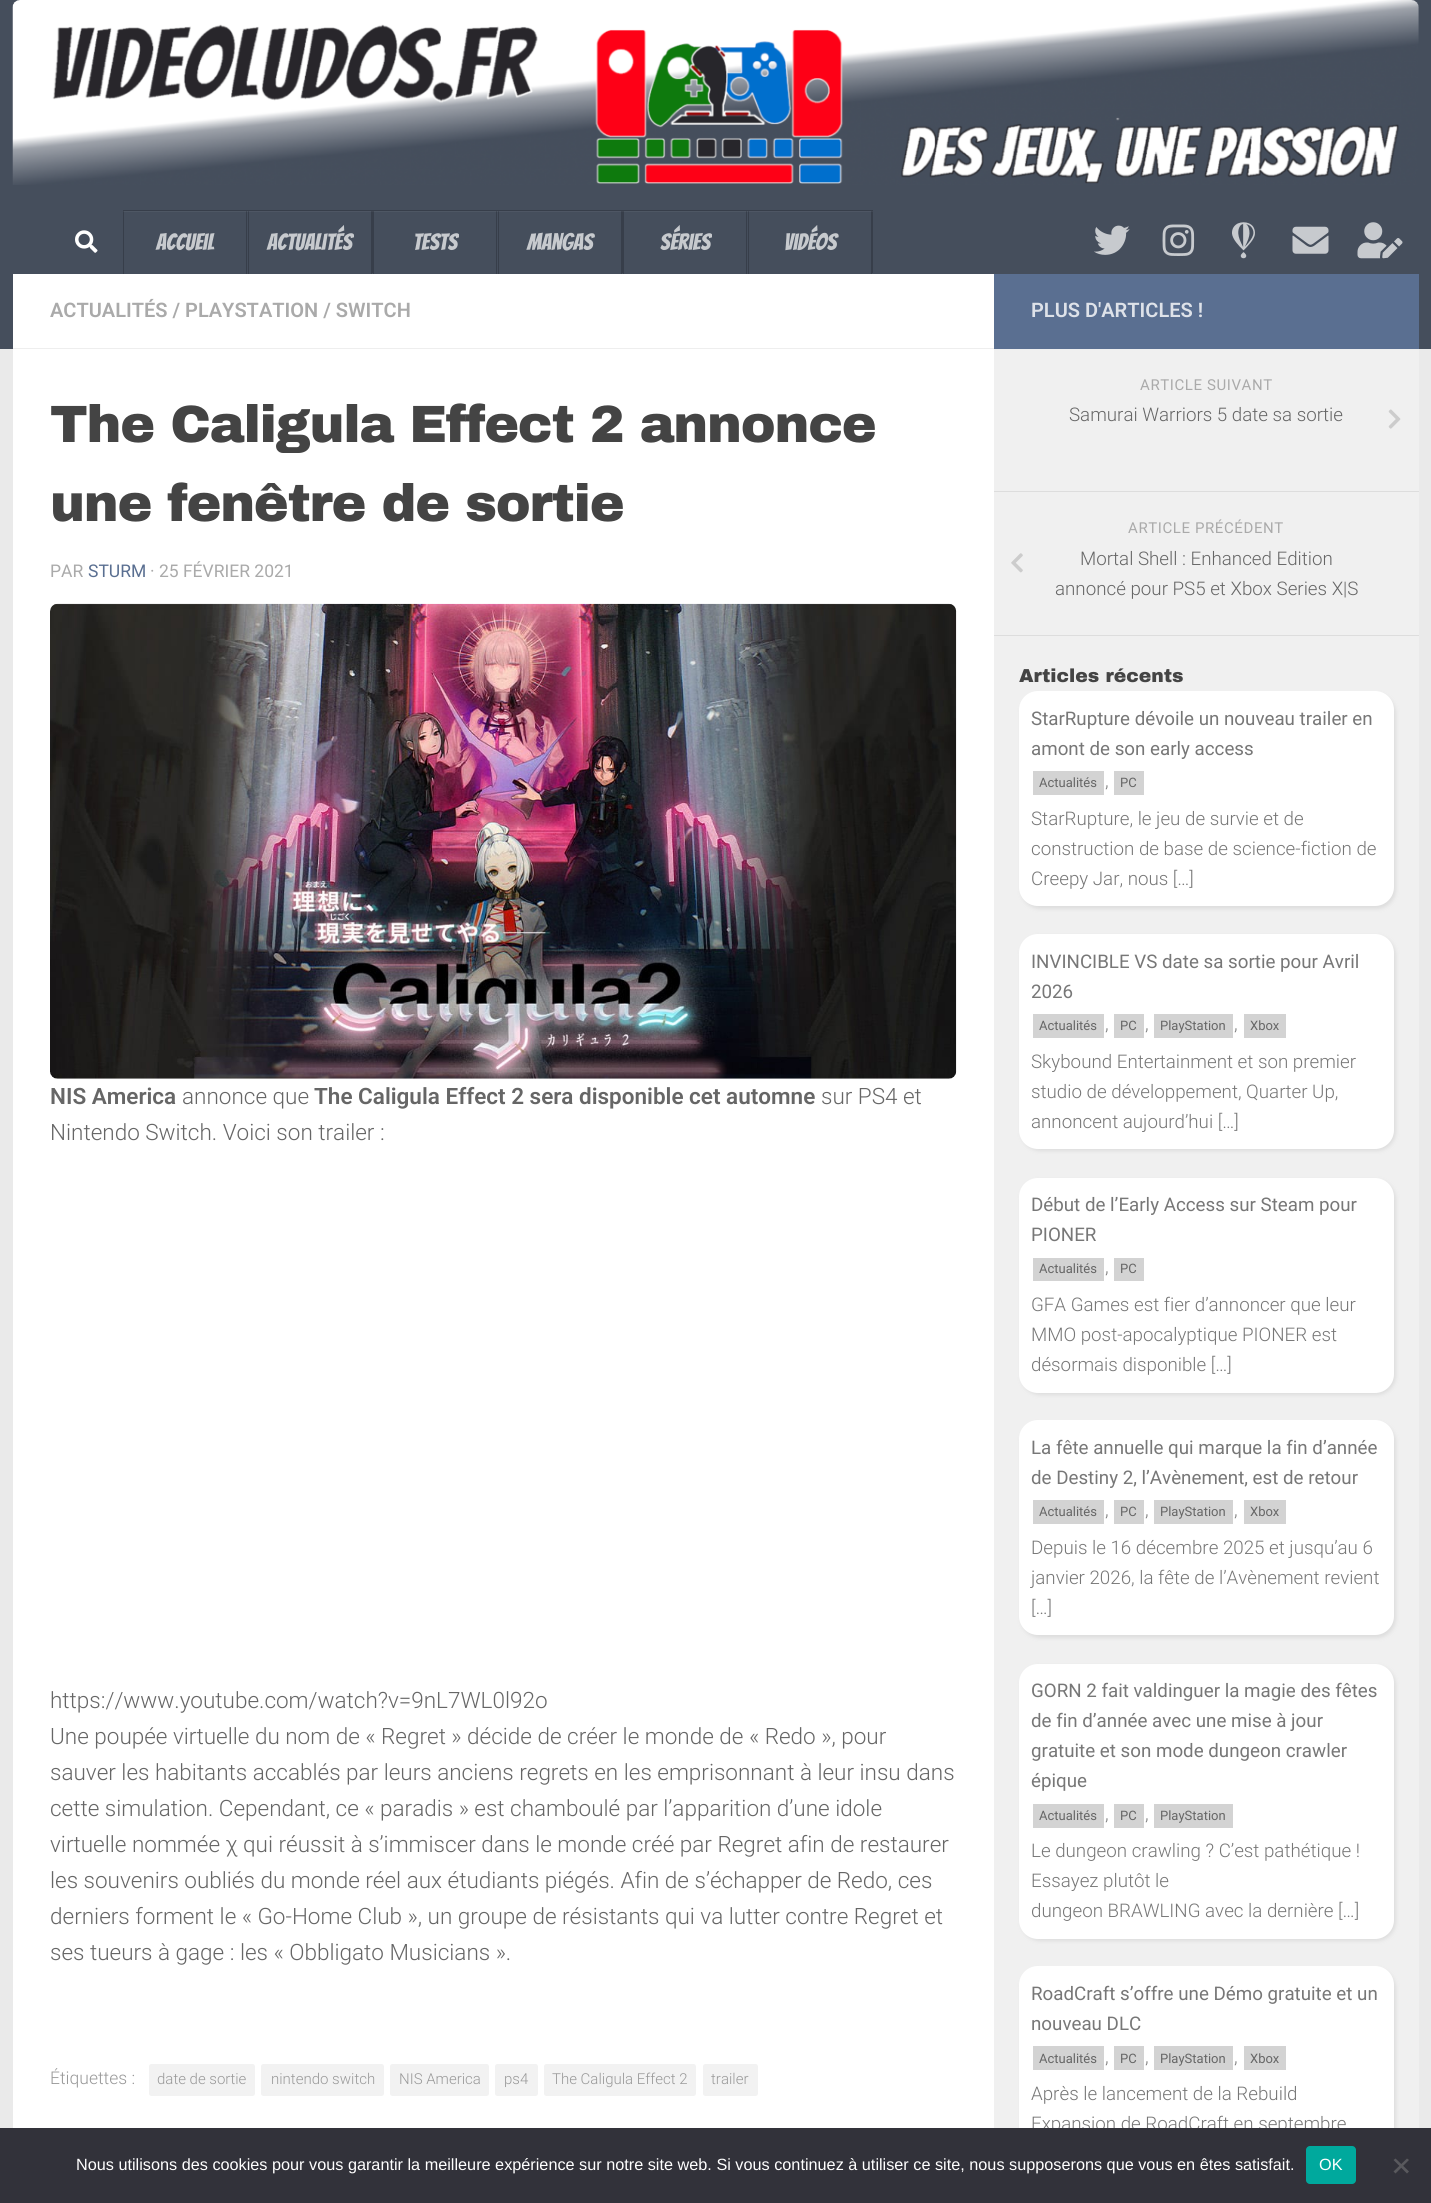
import math
import cairo

surface = cairo.ImageSurface(cairo.Format.RGB24, 1431, 2203)
ctx = cairo.Context(surface)
options = cairo.FontOptions()
options.set_hint_metrics(cairo.HintMetrics.OFF)
options.set_hint_style(cairo.HintStyle.NONE)
ctx.set_font_options(options)
ctx.set_miter_limit(4)


def ink(r, g, b):
    ctx.set_source_rgb(r / 255, g / 255, b / 255)


def write(x, y, s, family, size, color, bold=False, italic=False):
    ctx.select_font_face(family, cairo.FontSlant.ITALIC if italic else cairo.FontSlant.NORMAL, cairo.FontWeight.BOLD if bold else cairo.FontWeight.NORMAL)
    ctx.set_font_size(size)
    ink(*color)
    ctx.move_to(x, y)
    ctx.show_text(s)


def write_spaced(x, y, s, letter, word):
    ctx.move_to(x, y)
    for ch in s:
        ctx.show_text(ch)
        ctx.rel_move_to(letter + word * (ch == ' '), 0)


def block(x, y, w, h, *color):
    ink(*color)
    ctx.rectangle(x, y, w, h)
    ctx.fill()


def round_path(x, y, w, h, r):
    ctx.new_sub_path()
    for i, (u, v) in enumerate([(x + w - r, y + h - r), (x + r, y + h - r), (x + r, y + r), (x + w - r, y + r)]):
        ctx.arc(u, v, r, i * math.pi / 2, (i + 1) * math.pi / 2)
    ctx.close_path()


def blur_box(x, y, w, h, r, blur, alpha):
    ctx.push_group_with_content(cairo.Content.ALPHA)
    ctx.set_operator(cairo.Operator.SOURCE)
    for i in range(15, -16, -2):
        e = blur * i / 6
        if min(w, h) + 2 * e > 0:
            ctx.set_source_rgba(0, 0, 0, alpha * math.erfc((i - 1) / 8.5) / 2)
            round_path(x - e, y - e, w + 2 * e, h + 2 * e, max(0, min(r + e + blur * .6, min(w, h) / 2 + e)))
            ctx.fill()
    ctx.mask(ctx.pop_group())


def paste(path, x, y, w, h):
    ctx.save()
    ctx.set_source_surface(cairo.ImageSurface.create_from_png(path), x, y)
    ctx.rectangle(x, y, w, h)
    ctx.fill()
    ctx.restore()


s1 = dict(family="Bangers", size=23, color=(199, 202, 206))
s2 = dict(family="Roboto SemiBold", size=20, color=(170, 170, 170))
s3 = dict(family="Roboto", size=17.5, color=(170, 170, 170))
s4 = dict(family="Roboto", size=17.5, color=(90, 111, 145))
s5 = dict(family="Roboto SemiBold", size=22.5, color=(102, 102, 102))
s6 = dict(family="Roboto Light", size=22.5, color=(102, 102, 102))
s7 = dict(family="Roboto Light", size=17.5, color=(153, 153, 153))
s8 = dict(family="Roboto Light", size=15, color=(153, 153, 153))
s9 = dict(family="Roboto SemiBold", size=20, color=(222, 226, 233))
s10 = dict(family="Roboto Light", size=18.75, color=(102, 102, 102))
s11 = dict(family="Archivo Black Black", size=18.75, color=(68, 68, 68))
s12 = dict(family="Roboto", size=18.75, color=(119, 119, 119))
s13 = dict(family="Roboto", size=13, color=(102, 102, 102))
s14 = dict(family="Roboto Light", size=18.75, color=(119, 119, 119))
s15 = dict(family="Liberation Sans", size=16.25, color=(255, 255, 255))

ink(234, 234, 234)
ctx.paint()
block(0, 0, 1431, 349, 69, 78, 92)
block(623, 211, 125, 1, 78, 87, 100)
block(373, 211, 125, 1, 78, 87, 100)
block(123, 211, 125, 1, 78, 87, 100)
paste("pic1.png", 12, 0, 1407, 185)
paste("pic2.png", 75, 230, 23, 23)
ink(55, 62, 74)
ctx.new_path()
ctx.move_to(123, 210)
ctx.line_to(123, 211)
ctx.line_to(248, 211)
ctx.line_to(248, 273)
ctx.line_to(248, 210)
ctx.close_path()
ctx.fill()
block(246, 211, 1, 63, 55, 62, 74)
block(246, 211, 1, 1, 65, 72, 83)
block(123, 211, 1, 63, 55, 62, 74)
block(123, 211, 1, 1, 65, 72, 83)
write(156, 250, "Accueil", **s1)
ink(55, 62, 74)
ctx.new_path()
ctx.move_to(248, 210)
ctx.line_to(248, 211)
ctx.line_to(372, 211)
ctx.line_to(372, 273)
ctx.line_to(373, 273)
ctx.line_to(373, 210)
ctx.close_path()
ctx.fill()
block(371, 211, 1, 63, 55, 62, 74)
block(248, 211, 1, 63, 55, 62, 74)
ctx.set_source_rgba(1, 1, 1, 0.05)
ctx.rectangle(248, 211, 125, 1)
ctx.fill()
write(267, 250, "Actualités", **s1)
ink(55, 62, 74)
ctx.new_path()
ctx.move_to(373, 210)
ctx.line_to(373, 211)
ctx.line_to(498, 211)
ctx.line_to(498, 273)
ctx.line_to(498, 210)
ctx.close_path()
ctx.fill()
block(496, 211, 1, 63, 55, 62, 74)
block(496, 211, 1, 1, 65, 72, 83)
block(373, 211, 1, 63, 55, 62, 74)
block(373, 211, 1, 1, 65, 72, 83)
write(413, 250, "Tests", **s1)
ink(55, 62, 74)
ctx.new_path()
ctx.move_to(498, 210)
ctx.line_to(498, 211)
ctx.line_to(622, 211)
ctx.line_to(622, 273)
ctx.line_to(623, 273)
ctx.line_to(623, 210)
ctx.close_path()
ctx.fill()
block(621, 211, 1, 63, 55, 62, 74)
block(498, 211, 1, 63, 55, 62, 74)
ctx.set_source_rgba(1, 1, 1, 0.05)
ctx.rectangle(498, 211, 125, 1)
ctx.fill()
write(527, 250, "Mangas", **s1)
ink(55, 62, 74)
ctx.new_path()
ctx.move_to(623, 210)
ctx.line_to(623, 211)
ctx.line_to(748, 211)
ctx.line_to(748, 273)
ctx.line_to(748, 210)
ctx.close_path()
ctx.fill()
block(746, 211, 1, 63, 55, 62, 74)
block(746, 211, 1, 1, 65, 72, 83)
block(623, 211, 1, 63, 55, 62, 74)
block(623, 211, 1, 1, 65, 72, 83)
write(660, 250, "Séries", **s1)
ink(55, 62, 74)
ctx.new_path()
ctx.move_to(748, 210)
ctx.line_to(748, 211)
ctx.line_to(872, 211)
ctx.line_to(872, 273)
ctx.line_to(873, 273)
ctx.line_to(873, 210)
ctx.close_path()
ctx.fill()
block(871, 211, 1, 63, 55, 62, 74)
block(748, 211, 1, 63, 55, 62, 74)
ctx.set_source_rgba(1, 1, 1, 0.05)
ctx.rectangle(748, 211, 125, 1)
ctx.fill()
write(784, 250, "Vidéos", **s1)
paste("pic3.png", 1094, 225, 36, 30)
paste("pic4.png", 1162, 224, 33, 32)
paste("pic5.png", 1232, 222, 23, 37)
paste("pic6.png", 1292, 226, 37, 28)
paste("pic7.png", 1357, 222, 46, 37)
block(13, 274, 981, 1854, 255, 255, 255)
block(13, 348, 981, 1, 238, 238, 238)
write(50, 317, "ACTUALITÉS / PLAYSTATION / SWITCH", **s2)
ctx.select_font_face("Archivo Black Black")
ctx.set_font_size(52.4)
ink(68, 68, 68)
write_spaced(50, 442, "The Caligula Effect 2 annonce", -1.25, 0)
write_spaced(50, 521, "une fenêtre de sortie", -1.25, 0)
write(50, 577, "PAR", **s3)
write(88, 577, "STURM", **s4)
write(150, 577, "· 25 FÉVRIER 2021", **s3)
paste("pic8.png", 50, 603, 907, 476)
write(50, 1104, "NIS America", **s5)
write(182, 1104, "annonce que", **s6)
write(314, 1104, "The Caligula Effect 2 sera disponible cet automne", **s5)
write(821, 1104, "sur PS4 et", **s6)
write(50, 1140, "Nintendo Switch. Voici son trailer :", **s6)
write(50, 1708, "https://www.youtube.com/watch?v=9nL7WL0l92o", **s6)
write(50, 1744, "Une poupée virtuelle du nom de « Regret » décide de créer le monde de « Redo », pour", **s6)
write(50, 1780, "sauver les habitants accablés par leurs anciens regrets en les emprisonnant à leur insu dans", **s6)
write(50, 1816, "cette simulation. Cependant, ce « paradis » est chamboulé par l’apparition d’une idole", **s6)
write(50, 1852, "virtuelle nommée χ qui réussit à s’immiscer dans le monde créé par Regret afin de restaurer", **s6)
write(50, 1888, "les souvenirs oubliés du monde réel aux étudiants piégés. Afin de s’échapper de Redo, ces", **s6)
write(50, 1924, "derniers forment le « Go-Home Club », un groupe de résistants qui va lutter contre Regret et", **s6)
write(50, 1960, "ses tueurs à gage : les « Obbligato Musicians ».", **s6)
write(50, 2084, "Étiquettes :", **s7)
ink(242, 242, 242)
round_path(149, 2064, 106, 32, 2.5)
ctx.fill()
write(157, 2084, "date de sortie", **s8)
ink(242, 242, 242)
round_path(261, 2064, 123, 32, 2.5)
ctx.fill()
write(271, 2084, "nintendo switch", **s8)
ink(242, 242, 242)
round_path(390, 2064, 99, 32, 2.5)
ctx.fill()
write(399, 2084, "NIS America", **s8)
ink(242, 242, 242)
round_path(495, 2064, 43, 32, 2.5)
ctx.fill()
write(504, 2084, "ps4", **s8)
ink(242, 242, 242)
round_path(544, 2064, 152, 32, 2.5)
ctx.fill()
write(552, 2084, "The Caligula Effect 2", **s8)
ink(242, 242, 242)
round_path(703, 2064, 55, 32, 2.5)
ctx.fill()
write(711, 2084, "trailer", **s8)
block(994, 274, 425, 75, 90, 111, 145)
write(1031, 317, "PLUS D'ARTICLES !", **s9)
block(994, 349, 425, 1, 238, 238, 238)
block(994, 350, 425, 1778, 240, 240, 240)
block(994, 491, 425, 1, 221, 221, 221)
ctx.select_font_face("Roboto")
ctx.set_font_size(15)
ink(170, 170, 170)
write_spaced(1140, 390, "ARTICLE SUIVANT", 0.6, 0)
write(1069, 421, "Samurai Warriors 5 date sa sortie", **s10)
paste("pic9.png", 1388, 409, 13, 20)
block(994, 635, 425, 1, 221, 221, 221)
ctx.select_font_face("Roboto")
ctx.set_font_size(15)
ink(170, 170, 170)
write_spaced(1128, 533, "ARTICLE PRÉCÉDENT", 0.6, 0)
paste("pic10.png", 1011, 553, 12, 20)
write(1080, 565, "Mortal Shell : Enhanced Edition", **s10)
write(1055, 595, "annoncé pour PS5 et Xbox Series X|S", **s10)
write(1019, 682, "Articles récents", **s11)
ink(221, 221, 221)
blur_box(1021, 694, 375, 215, 19, 2, 1)
ink(255, 255, 255)
round_path(1019, 691, 375, 215, 19)
ctx.fill()
write(1031, 725, "StarRupture dévoile un nouveau trailer en", **s12)
write(1031, 755, "amont de son early access", **s12)
block(1033, 771, 71, 24, 211, 211, 211)
write(1039, 787, "Actualités", **s13)
write(1105, 787, ",", **s14)
block(1114, 771, 30, 24, 211, 211, 211)
write(1120, 787, "PC", **s13)
write(1031, 825, "StarRupture, le jeu de survie et de", **s14)
write(1031, 855, "construction de base de science-fiction de", **s14)
write(1031, 885, "Creepy Jar, nous […]", **s14)
ink(221, 221, 221)
blur_box(1021, 936, 375, 215, 19, 2, 1)
ink(255, 255, 255)
round_path(1019, 934, 375, 215, 19)
ctx.fill()
write(1031, 968, "INVINCIBLE VS date sa sortie pour Avril", **s12)
write(1031, 998, "2026", **s12)
block(1033, 1014, 71, 24, 211, 211, 211)
write(1039, 1030, "Actualités", **s13)
write(1105, 1030, ",", **s14)
block(1114, 1014, 30, 24, 211, 211, 211)
write(1120, 1030, "PC", **s13)
write(1145, 1030, ",", **s14)
block(1154, 1014, 79, 24, 211, 211, 211)
write(1160, 1030, "PlayStation", **s13)
write(1234, 1030, ",", **s14)
block(1244, 1014, 42, 24, 211, 211, 211)
write(1250, 1030, "Xbox", **s13)
write(1031, 1068, "Skybound Entertainment et son premier", **s14)
write(1031, 1098, "studio de développement, Quarter Up,", **s14)
write(1031, 1128, "annoncent aujourd’hui […]", **s14)
ink(221, 221, 221)
blur_box(1021, 1180, 375, 215, 19, 2, 1)
ink(255, 255, 255)
round_path(1019, 1178, 375, 215, 19)
ctx.fill()
write(1031, 1211, "Début de l’Early Access sur Steam pour", **s12)
write(1031, 1241, "PIONER", **s12)
block(1033, 1258, 71, 23, 211, 211, 211)
write(1039, 1273, "Actualités", **s13)
write(1105, 1273, ",", **s14)
block(1114, 1258, 30, 23, 211, 211, 211)
write(1120, 1273, "PC", **s13)
write(1031, 1311, "GFA Games est fier d’annoncer que leur", **s14)
write(1031, 1341, "MMO post-apocalyptique PIONER est", **s14)
write(1031, 1371, "désormais disponible […]", **s14)
ink(221, 221, 221)
blur_box(1021, 1423, 375, 215, 19, 2, 1)
ink(255, 255, 255)
round_path(1019, 1420, 375, 215, 19)
ctx.fill()
write(1031, 1454, "La fête annuelle qui marque la fin d’année", **s12)
write(1031, 1484, "de Destiny 2, l’Avènement, est de retour", **s12)
block(1033, 1500, 71, 24, 211, 211, 211)
write(1039, 1516, "Actualités", **s13)
write(1105, 1516, ",", **s14)
block(1114, 1500, 30, 24, 211, 211, 211)
write(1120, 1516, "PC", **s13)
write(1145, 1516, ",", **s14)
block(1154, 1500, 79, 24, 211, 211, 211)
write(1160, 1516, "PlayStation", **s13)
write(1234, 1516, ",", **s14)
block(1244, 1500, 42, 24, 211, 211, 211)
write(1250, 1516, "Xbox", **s13)
write(1031, 1554, "Depuis le 16 décembre 2025 et jusqu’au 6", **s14)
write(1031, 1584, "janvier 2026, la fête de l’Avènement revient", **s14)
write(1031, 1614, "[…]", **s14)
ink(221, 221, 221)
blur_box(1021, 1666, 375, 275, 19, 2, 1)
ink(255, 255, 255)
round_path(1019, 1664, 375, 275, 19)
ctx.fill()
write(1031, 1697, "GORN 2 fait valdinguer la magie des fêtes", **s12)
write(1031, 1727, "de fin d’année avec une mise à jour", **s12)
write(1031, 1757, "gratuite et son mode dungeon crawler", **s12)
write(1031, 1787, "épique", **s12)
block(1033, 1804, 71, 24, 211, 211, 211)
write(1039, 1820, "Actualités", **s13)
write(1105, 1820, ",", **s14)
block(1114, 1804, 30, 24, 211, 211, 211)
write(1120, 1820, "PC", **s13)
write(1145, 1820, ",", **s14)
block(1154, 1804, 79, 24, 211, 211, 211)
write(1160, 1820, "PlayStation", **s13)
write(1031, 1857, "Le dungeon crawling ? C’est pathétique !", **s14)
write(1031, 1887, "Essayez plutôt le", **s14)
write(1031, 1917, "dungeon BRAWLING avec la dernière […]", **s14)
ink(221, 221, 221)
blur_box(1021, 1969, 375, 215, 19, 2, 1)
ink(255, 255, 255)
round_path(1019, 1966, 375, 215, 19)
ctx.fill()
write(1031, 2000, "RoadCraft s’offre une Démo gratuite et un", **s12)
write(1031, 2030, "nouveau DLC", **s12)
block(1033, 2046, 71, 24, 211, 211, 211)
write(1039, 2063, "Actualités", **s13)
write(1105, 2063, ",", **s14)
block(1114, 2046, 30, 24, 211, 211, 211)
write(1120, 2063, "PC", **s13)
write(1145, 2063, ",", **s14)
block(1154, 2046, 79, 24, 211, 211, 211)
write(1160, 2063, "PlayStation", **s13)
write(1234, 2063, ",", **s14)
block(1244, 2046, 42, 24, 211, 211, 211)
write(1250, 2063, "Xbox", **s13)
write(1031, 2100, "Après le lancement de la Rebuild", **s14)
write(1031, 2130, "Expansion de RoadCraft en septembre", **s14)
block(0, 2128, 1431, 75, 50, 50, 58)
write(76, 2170, "Nous utilisons des cookies pour vous garantir la meilleure expérience sur notre site web. Si vous continuez à utiliser ce site, nous supposerons que vous en êtes satisfait.", **s15)
ink(0, 169, 157)
round_path(1306, 2146, 50, 38, 4)
ctx.fill()
write(1319, 2170, "OK", **s15)
ink(89, 89, 93)
ctx.new_path()
ctx.move_to(1407, 2158.5)
ctx.line_to(1409, 2160)
ctx.line_to(1395.5, 2173.5)
ctx.line_to(1393.5, 2171.5)
ctx.close_path()
ctx.fill()
ctx.new_path()
ctx.move_to(1393.5, 2160)
ctx.line_to(1395.5, 2158.5)
ctx.line_to(1409, 2171.5)
ctx.line_to(1407, 2173.5)
ctx.close_path()
ctx.fill()
surface.write_to_png("screenshot.png")
